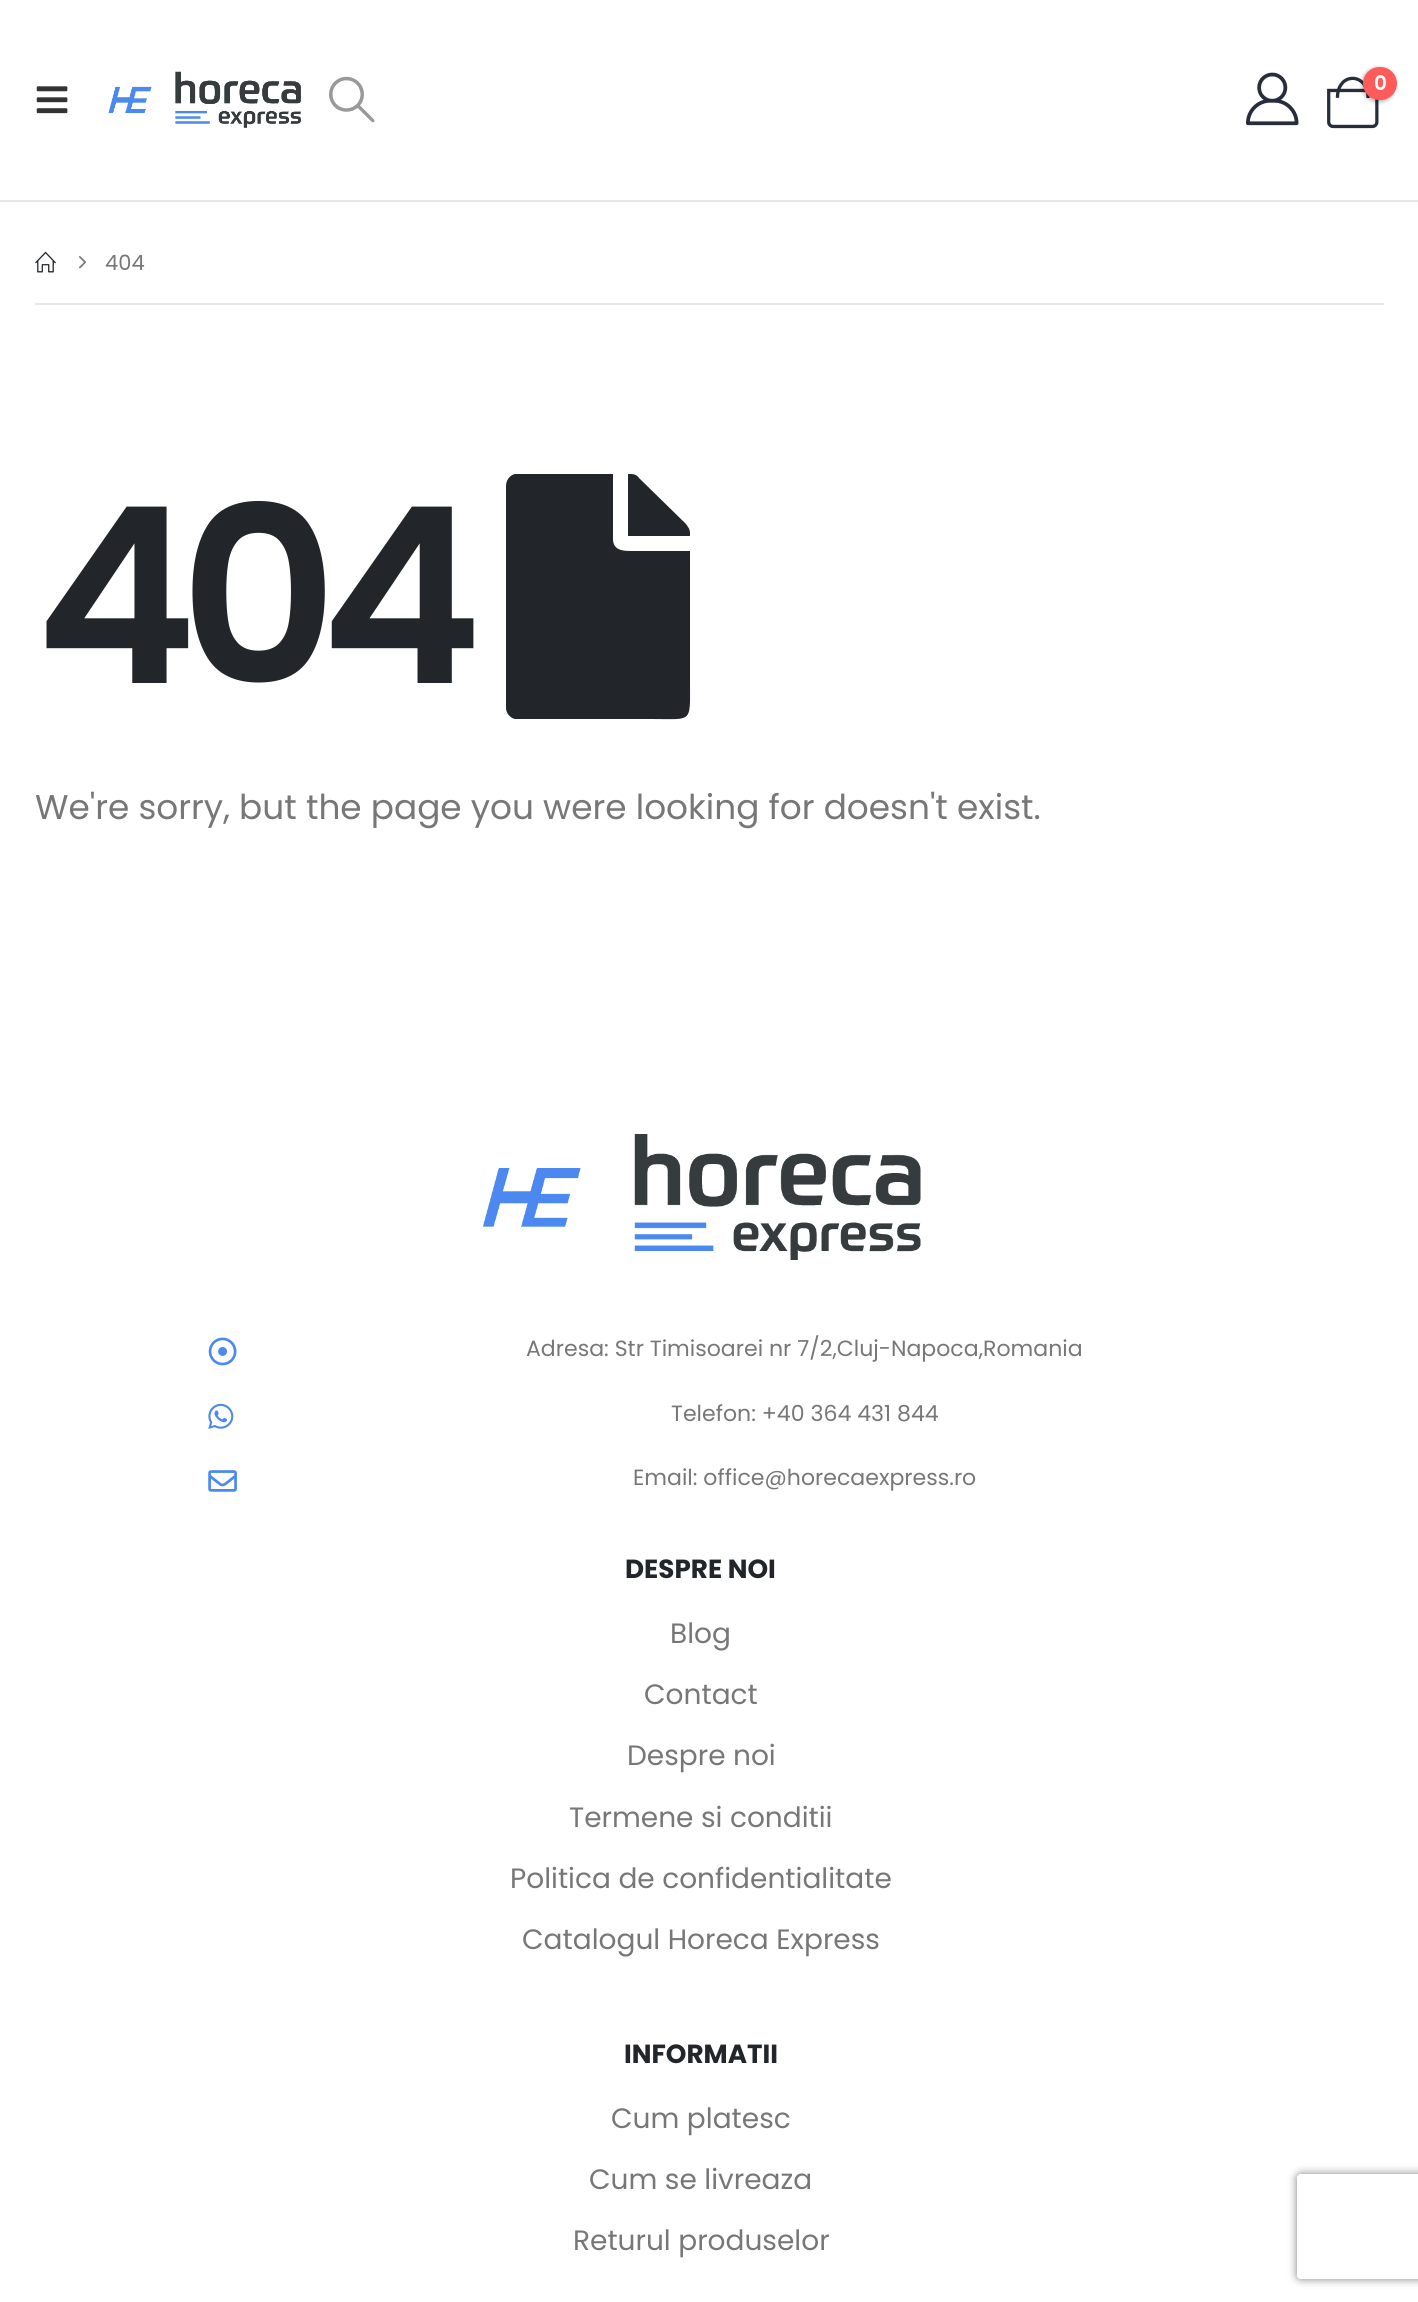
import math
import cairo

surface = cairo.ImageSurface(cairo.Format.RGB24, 1418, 2302)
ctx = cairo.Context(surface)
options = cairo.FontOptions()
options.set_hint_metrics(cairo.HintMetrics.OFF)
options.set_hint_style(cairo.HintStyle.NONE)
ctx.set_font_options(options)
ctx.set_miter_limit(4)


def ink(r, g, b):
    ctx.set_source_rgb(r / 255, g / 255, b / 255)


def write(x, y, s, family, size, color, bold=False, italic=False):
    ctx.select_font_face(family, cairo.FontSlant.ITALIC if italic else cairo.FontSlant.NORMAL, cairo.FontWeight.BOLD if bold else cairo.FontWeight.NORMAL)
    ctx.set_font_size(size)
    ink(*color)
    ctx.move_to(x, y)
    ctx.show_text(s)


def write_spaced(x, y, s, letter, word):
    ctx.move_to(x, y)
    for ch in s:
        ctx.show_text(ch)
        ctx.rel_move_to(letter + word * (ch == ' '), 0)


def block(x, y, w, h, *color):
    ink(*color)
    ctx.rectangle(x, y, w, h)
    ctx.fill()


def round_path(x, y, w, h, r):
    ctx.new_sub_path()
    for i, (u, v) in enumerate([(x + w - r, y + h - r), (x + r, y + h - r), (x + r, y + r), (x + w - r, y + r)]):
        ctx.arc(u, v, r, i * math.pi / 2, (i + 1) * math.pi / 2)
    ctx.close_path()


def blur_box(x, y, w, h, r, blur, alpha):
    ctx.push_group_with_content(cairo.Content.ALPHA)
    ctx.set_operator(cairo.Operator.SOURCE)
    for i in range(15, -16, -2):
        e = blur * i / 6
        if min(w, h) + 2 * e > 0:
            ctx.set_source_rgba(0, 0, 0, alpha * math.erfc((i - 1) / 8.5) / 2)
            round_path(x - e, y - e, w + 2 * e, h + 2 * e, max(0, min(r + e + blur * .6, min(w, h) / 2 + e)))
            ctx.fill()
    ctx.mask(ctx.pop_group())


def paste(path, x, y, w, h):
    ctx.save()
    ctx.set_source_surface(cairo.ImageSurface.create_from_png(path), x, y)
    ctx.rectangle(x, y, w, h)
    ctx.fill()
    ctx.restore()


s1 = dict(family="Poppins SemiBold", size=20, color=(255, 255, 255))
s2 = dict(family="Poppins", size=21, color=(119, 119, 119))
s3 = dict(family="Poppins", size=34.3, color=(119, 119, 119))
s4 = dict(family="Poppins", size=22.05, color=(119, 119, 119))
s5 = dict(family="Poppins", size=26.25, color=(34, 37, 41), bold=True)
s6 = dict(family="Poppins", size=28, color=(119, 119, 119))

ink(255, 255, 255)
ctx.paint()
paste("pic1.png", 36, 86, 32, 28)
paste("pic2.png", 108, 71, 193, 57)
paste("pic3.png", 329, 76, 46, 47)
paste("pic4.png", 1246, 72, 53, 54)
paste("pic5.png", 1327, 76, 52, 53)
ink(0, 0, 0)
blur_box(1362, 68, 33, 34, 16.5, 2, 0.3)
ink(255, 91, 91)
round_path(1363, 67, 34, 33, 16.5)
ctx.fill()
write(1374, 90, "0", **s1)
block(0, 200, 1418, 2, 231, 231, 231)
paste("pic6.png", 35, 251, 21, 22)
paste("pic7.png", 78, 256, 9, 13)
write(105, 270, "404", **s2)
block(35, 303, 1349, 2, 231, 231, 231)
ctx.select_font_face("Poppins SemiBold")
ctx.set_font_size(245)
ink(34, 37, 41)
write_spaced(35, 683, "404", -17.5, 0)
ctx.new_path()
ctx.move_to(613, 539)
ctx.line_to(613, 474)
ctx.line_to(515, 474)
ctx.curve_to(510, 475, 506, 480, 506, 486)
ctx.line_to(506, 708)
ctx.curve_to(506, 713, 510, 718, 515, 719)
ctx.line_to(651, 719)
ctx.curve_to(693, 719, 690, 724, 690, 682)
ctx.line_to(690, 551)
ctx.line_to(635, 551)
ctx.curve_to(626, 551, 613, 552, 613, 539)
ctx.close_path()
ctx.move_to(690, 533)
ctx.line_to(690, 536)
ctx.line_to(628, 536)
ctx.line_to(628, 474)
ctx.line_to(631, 474)
ctx.curve_to(634, 474, 637, 475, 639, 478)
ctx.line_to(686, 524)
ctx.curve_to(688, 527, 690, 529, 690, 533)
ctx.close_path()
ctx.fill()
write(35, 819, "We're sorry, but the page you were looking for doesn't exist.", **s3)
paste("pic8.png", 483, 1134, 438, 126)
paste("pic9.png", 208, 1337, 29, 29)
write(526, 1356, "Adresa: Str Timisoarei nr 7/2,Cluj-Napoca,Romania", **s4)
paste("pic10.png", 208, 1403, 26, 26)
write(671, 1421, "Telefon: +40 364 431 844", **s4)
paste("pic11.png", 208, 1470, 29, 22)
write(633, 1485, "Email: office@horecaexpress.ro", **s4)
write(625, 1578, "DESPRE NOI", **s5)
write(670, 1643, "Blog", **s6)
write(644, 1704, "Contact", **s6)
write(627, 1765, "Despre noi", **s6)
write(569, 1827, "Termene si conditii", **s6)
write(510, 1888, "Politica de confidentialitate", **s6)
write(522, 1949, "Catalogul Horeca Express", **s6)
write(624, 2063, "INFORMATII", **s5)
write(611, 2128, "Cum platesc", **s6)
write(589, 2189, "Cum se livreaza", **s6)
write(573, 2250, "Returul produselor", **s6)
ctx.save()
ctx.set_fill_rule(cairo.FillRule.EVEN_ODD)
ctx.new_path()
ctx.move_to(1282, 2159)
ctx.line_to(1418, 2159)
ctx.line_to(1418, 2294)
ctx.line_to(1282, 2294)
ctx.close_path()
ctx.move_to(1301, 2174)
ctx.line_to(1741, 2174)
ctx.curve_to(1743, 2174, 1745, 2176, 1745, 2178)
ctx.line_to(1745, 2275)
ctx.curve_to(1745, 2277, 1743, 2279, 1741, 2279)
ctx.line_to(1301, 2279)
ctx.curve_to(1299, 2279, 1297, 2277, 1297, 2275)
ctx.line_to(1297, 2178)
ctx.curve_to(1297, 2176, 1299, 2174, 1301, 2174)
ctx.close_path()
ctx.clip()
ink(128, 128, 128)
blur_box(1297, 2174, 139, 105, 4, 4.5, 1)
ctx.restore()
surface.write_to_png("screenshot.png")
